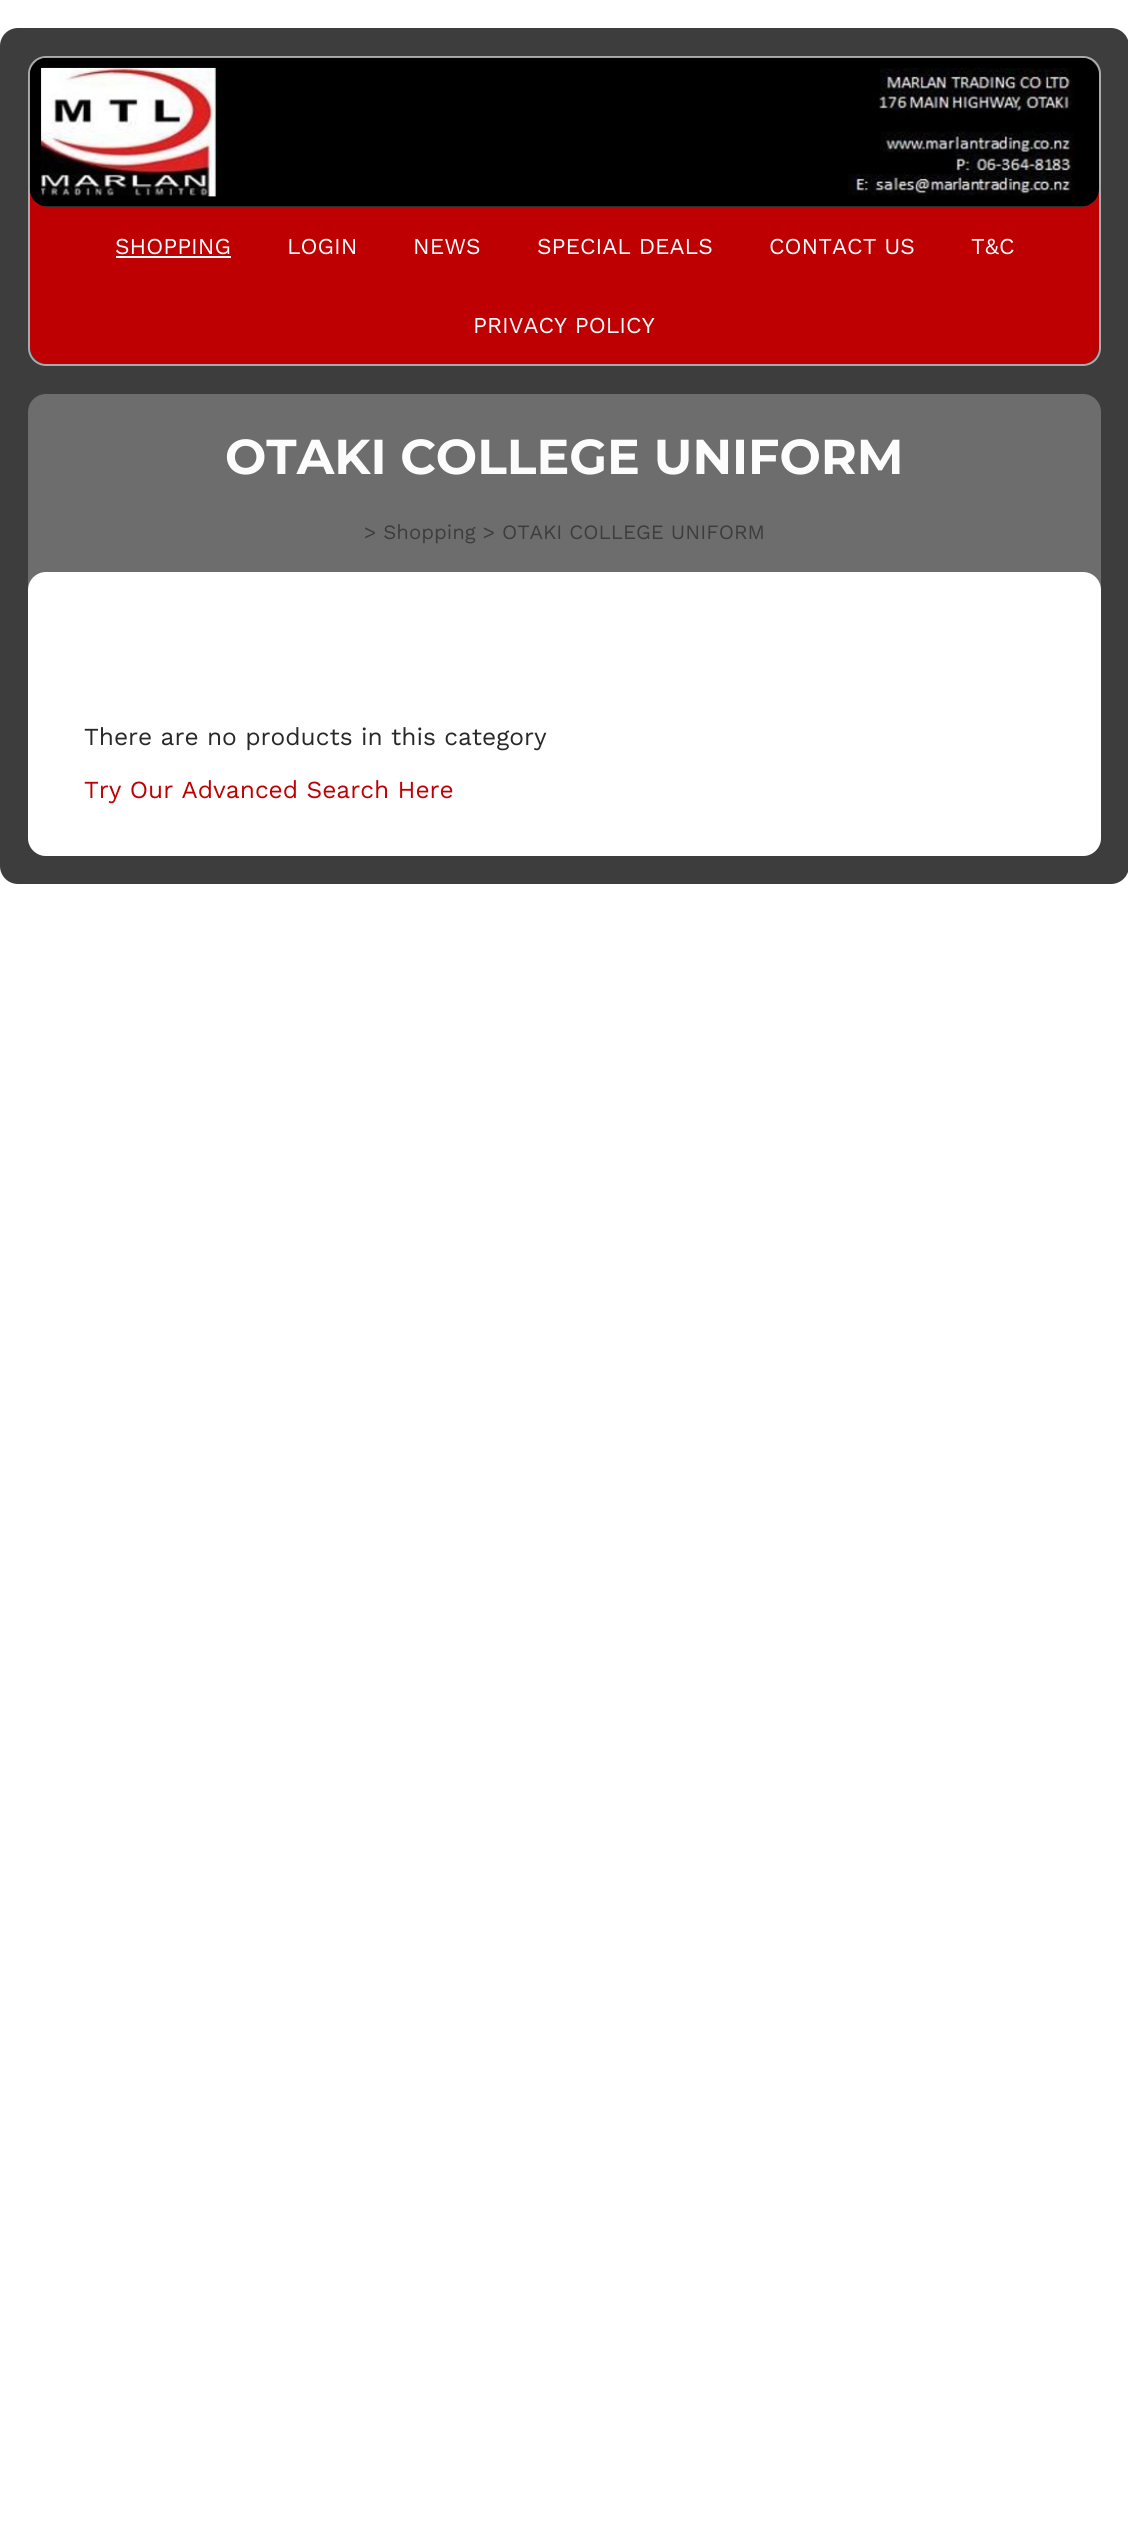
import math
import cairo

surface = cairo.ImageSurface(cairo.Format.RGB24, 1128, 2541)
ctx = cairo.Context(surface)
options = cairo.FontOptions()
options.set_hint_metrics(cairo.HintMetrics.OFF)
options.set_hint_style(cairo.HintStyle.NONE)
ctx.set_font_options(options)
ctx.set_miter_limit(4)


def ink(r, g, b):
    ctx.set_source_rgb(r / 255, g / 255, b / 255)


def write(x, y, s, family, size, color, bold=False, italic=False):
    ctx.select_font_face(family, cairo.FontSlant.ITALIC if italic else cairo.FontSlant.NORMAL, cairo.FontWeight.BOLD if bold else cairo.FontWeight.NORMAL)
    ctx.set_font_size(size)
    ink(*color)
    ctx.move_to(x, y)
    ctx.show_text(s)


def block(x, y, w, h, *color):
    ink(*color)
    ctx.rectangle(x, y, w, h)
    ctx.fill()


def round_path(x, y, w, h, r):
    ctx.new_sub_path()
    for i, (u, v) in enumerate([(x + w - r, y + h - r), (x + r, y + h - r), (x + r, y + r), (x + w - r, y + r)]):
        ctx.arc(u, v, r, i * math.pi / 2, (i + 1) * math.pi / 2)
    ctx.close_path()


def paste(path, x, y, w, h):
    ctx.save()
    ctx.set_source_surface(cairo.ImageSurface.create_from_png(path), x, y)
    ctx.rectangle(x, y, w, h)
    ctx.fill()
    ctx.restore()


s1 = dict(family="Work Sans", size=22.75, color=(252, 252, 252))
s2 = dict(family="Montserrat", size=49, color=(252, 252, 252), bold=True)
s3 = dict(family="Work Sans", size=20.4, color=(61, 61, 61))
s4 = dict(family="Work Sans", size=24.5, color=(40, 40, 40))
s5 = dict(family="Work Sans", size=24.5, color=(191, 0, 3))

ink(255, 255, 255)
ctx.paint()
ink(61, 61, 61)
round_path(0, 28, 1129, 856, 18)
ctx.fill()
round_path(29, 57, 1071, 308, 17)
ink(170, 170, 170)
ctx.stroke()
ink(191, 0, 3)
ctx.new_path()
ctx.move_to(30, 193)
ctx.line_to(1099, 193)
ctx.line_to(1099, 346)
ctx.curve_to(1099, 356, 1091, 364, 1081, 364)
ctx.line_to(48, 364)
ctx.curve_to(38, 364, 30, 356, 30, 346)
ctx.close_path()
ctx.fill()
ink(61, 61, 61)
round_path(30, 58, 1069, 149, 18)
ctx.fill()
paste("pic1.png", 29, 57, 1070, 150)
write(115, 254, "SHOPPING", **s1)
block(116, 256, 115, 2, 252, 252, 252)
write(287, 254, "LOGIN", **s1)
write(413, 254, "NEWS", **s1)
write(537, 254, "SPECIAL DEALS", **s1)
write(769, 254, "CONTACT US", **s1)
write(971, 254, "T&C", **s1)
write(473, 333, "PRIVACY POLICY", **s1)
ink(109, 109, 109)
round_path(28, 394, 1073, 462, 18)
ctx.fill()
write(225, 474, "OTAKI COLLEGE UNIFORM", **s2)
write(364, 539, "> Shopping > OTAKI COLLEGE UNIFORM", **s3)
ink(255, 255, 255)
round_path(28, 572, 1073, 284, 18)
ctx.fill()
write(84, 745, "There are no products in this category", **s4)
write(84, 798, "Try Our Advanced Search Here", **s5)
surface.write_to_png("screenshot.png")
